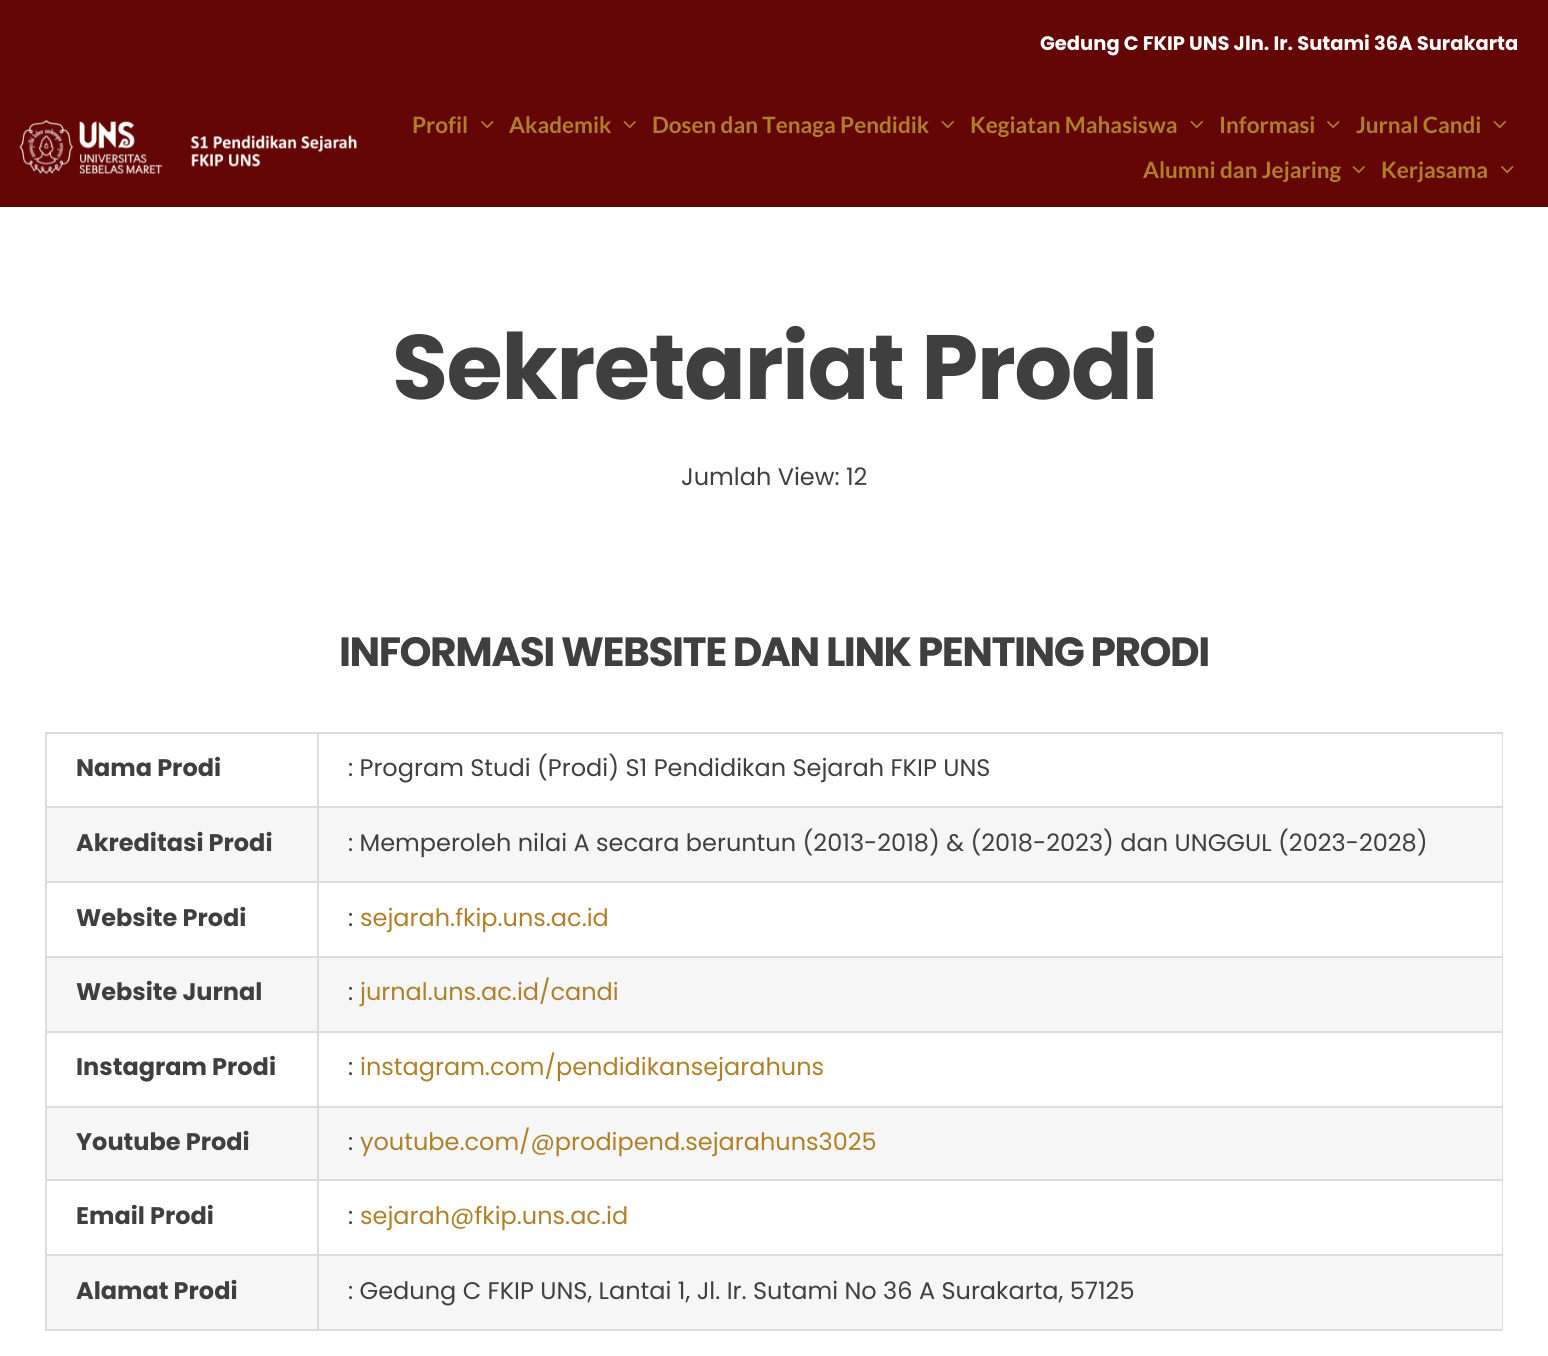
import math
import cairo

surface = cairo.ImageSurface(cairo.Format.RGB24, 1548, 1356)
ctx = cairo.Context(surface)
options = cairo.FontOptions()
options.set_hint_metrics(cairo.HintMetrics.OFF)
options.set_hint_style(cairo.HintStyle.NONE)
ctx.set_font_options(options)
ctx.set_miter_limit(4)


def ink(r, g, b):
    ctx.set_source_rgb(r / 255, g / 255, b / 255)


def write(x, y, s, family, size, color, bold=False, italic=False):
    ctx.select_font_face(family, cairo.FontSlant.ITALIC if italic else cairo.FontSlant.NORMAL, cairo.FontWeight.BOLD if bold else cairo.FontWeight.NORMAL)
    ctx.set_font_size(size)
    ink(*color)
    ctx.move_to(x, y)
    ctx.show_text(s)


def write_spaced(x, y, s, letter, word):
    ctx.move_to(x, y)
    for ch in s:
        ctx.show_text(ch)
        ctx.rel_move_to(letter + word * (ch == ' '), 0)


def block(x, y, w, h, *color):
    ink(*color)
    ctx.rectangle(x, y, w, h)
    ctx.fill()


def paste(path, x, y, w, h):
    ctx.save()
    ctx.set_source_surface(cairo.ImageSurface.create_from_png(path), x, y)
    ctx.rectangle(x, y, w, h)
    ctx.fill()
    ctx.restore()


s1 = dict(family="Poppins", size=19.5, color=(255, 255, 255), bold=True)
s2 = dict(family="Lato", size=22.5, color=(175, 128, 40), bold=True)
s3 = dict(family="Poppins", size=24, color=(63, 63, 63))
s4 = dict(family="Poppins", size=24, color=(63, 63, 63), bold=True)
s5 = dict(family="Poppins", size=24, color=(175, 128, 40))

ink(255, 255, 255)
ctx.paint()
block(0, 0, 1548, 207, 100, 6, 6)
write(1040, 50, "Gedung C FKIP UNS Jln. Ir. Sutami 36A Surakarta", **s1)
paste("pic1.png", 19, 120, 338, 54)
write(412, 133, "Profil", **s2)
paste("pic2.png", 481, 121, 13, 8)
write(509, 133, "Akademik", **s2)
paste("pic3.png", 623, 121, 13, 8)
write(652, 133, "Dosen dan Tenaga Pendidik", **s2)
paste("pic3.png", 941, 121, 13, 8)
write(970, 133, "Kegiatan Mahasiswa", **s2)
paste("pic3.png", 1190, 121, 13, 8)
write(1219, 133, "Informasi", **s2)
paste("pic2.png", 1327, 121, 13, 8)
write(1356, 133, "Jurnal Candi", **s2)
paste("pic3.png", 1493, 121, 13, 8)
write(1143, 178, "Alumni dan Jejaring", **s2)
paste("pic3.png", 1352, 166, 13, 8)
write(1381, 178, "Kerjasama", **s2)
paste("pic2.png", 1501, 166, 13, 8)
ctx.select_font_face("Poppins", cairo.FontSlant.NORMAL, cairo.FontWeight.BOLD)
ctx.set_font_size(91.25)
ink(63, 63, 63)
write_spaced(392, 399, "Sekretariat Prodi", -1.5, 0)
write(681, 485, "Jumlah View: 12", **s3)
ctx.select_font_face("Poppins", cairo.FontSlant.NORMAL, cairo.FontWeight.BOLD)
ctx.set_font_size(40.8)
write_spaced(339, 666, "INFORMASI WEBSITE DAN LINK PENTING PRODI", -1.5, 0)
block(45, 732, 1458, 2, 220, 220, 220)
block(1502, 732, 1, 599, 220, 220, 220)
block(45, 1329, 1458, 2, 220, 220, 220)
block(45, 732, 2, 599, 220, 220, 220)
write(76, 776, "Nama Prodi", **s4)
block(317, 806, 1186, 2, 220, 220, 220)
block(47, 808, 1455, 73, 246, 246, 246)
block(317, 881, 1186, 2, 220, 220, 220)
block(317, 956, 1186, 2, 220, 220, 220)
block(47, 958, 1455, 73, 246, 246, 246)
block(317, 1031, 1186, 2, 220, 220, 220)
block(317, 1106, 1186, 2, 220, 220, 220)
block(47, 1108, 1455, 71, 246, 246, 246)
block(317, 1179, 1186, 2, 220, 220, 220)
block(317, 1254, 1186, 2, 220, 220, 220)
block(47, 1256, 1455, 73, 246, 246, 246)
block(317, 1254, 2, 77, 220, 220, 220)
block(45, 1254, 273, 2, 220, 220, 220)
block(317, 1179, 2, 77, 220, 220, 220)
block(45, 1179, 273, 2, 220, 220, 220)
block(317, 1106, 2, 75, 220, 220, 220)
block(45, 1106, 273, 2, 220, 220, 220)
block(317, 1031, 2, 76, 220, 220, 220)
block(45, 1031, 273, 2, 220, 220, 220)
block(317, 956, 2, 76, 220, 220, 220)
block(45, 956, 273, 2, 220, 220, 220)
block(317, 881, 2, 76, 220, 220, 220)
block(45, 881, 273, 2, 220, 220, 220)
block(317, 806, 2, 76, 220, 220, 220)
block(45, 806, 273, 2, 220, 220, 220)
block(317, 732, 2, 75, 220, 220, 220)
write(348, 776, ": Program Studi (Prodi) S1 Pendidikan Sejarah FKIP UNS", **s3)
write(76, 851, "Akreditasi Prodi", **s4)
write(348, 851, ": Memperoleh nilai A secara beruntun (2013-2018) & (2018-2023) dan UNGGUL (2023-2028)", **s3)
write(76, 926, "Website Prodi", **s4)
write(348, 926, ":", **s3)
write(360, 926, "sejarah.fkip.uns.ac.id", **s5)
write(76, 1000, "Website Jurnal", **s4)
write(348, 1000, ":", **s3)
write(360, 1000, "jurnal.uns.ac.id/candi", **s5)
write(76, 1075, "Instagram Prodi", **s4)
write(348, 1075, ":", **s3)
write(360, 1075, "instagram.com/pendidikansejarahuns", **s5)
write(76, 1150, "Youtube Prodi", **s4)
write(348, 1150, ":", **s3)
write(360, 1150, "youtube.com/@prodipend.sejarahuns3025", **s5)
write(76, 1224, "Email Prodi", **s4)
write(348, 1224, ":", **s3)
write(360, 1224, "sejarah@fkip.uns.ac.id", **s5)
write(76, 1299, "Alamat Prodi", **s4)
write(348, 1299, ": Gedung C FKIP UNS, Lantai 1, Jl. Ir. Sutami No 36 A Surakarta, 57125", **s3)
surface.write_to_png("screenshot.png")
